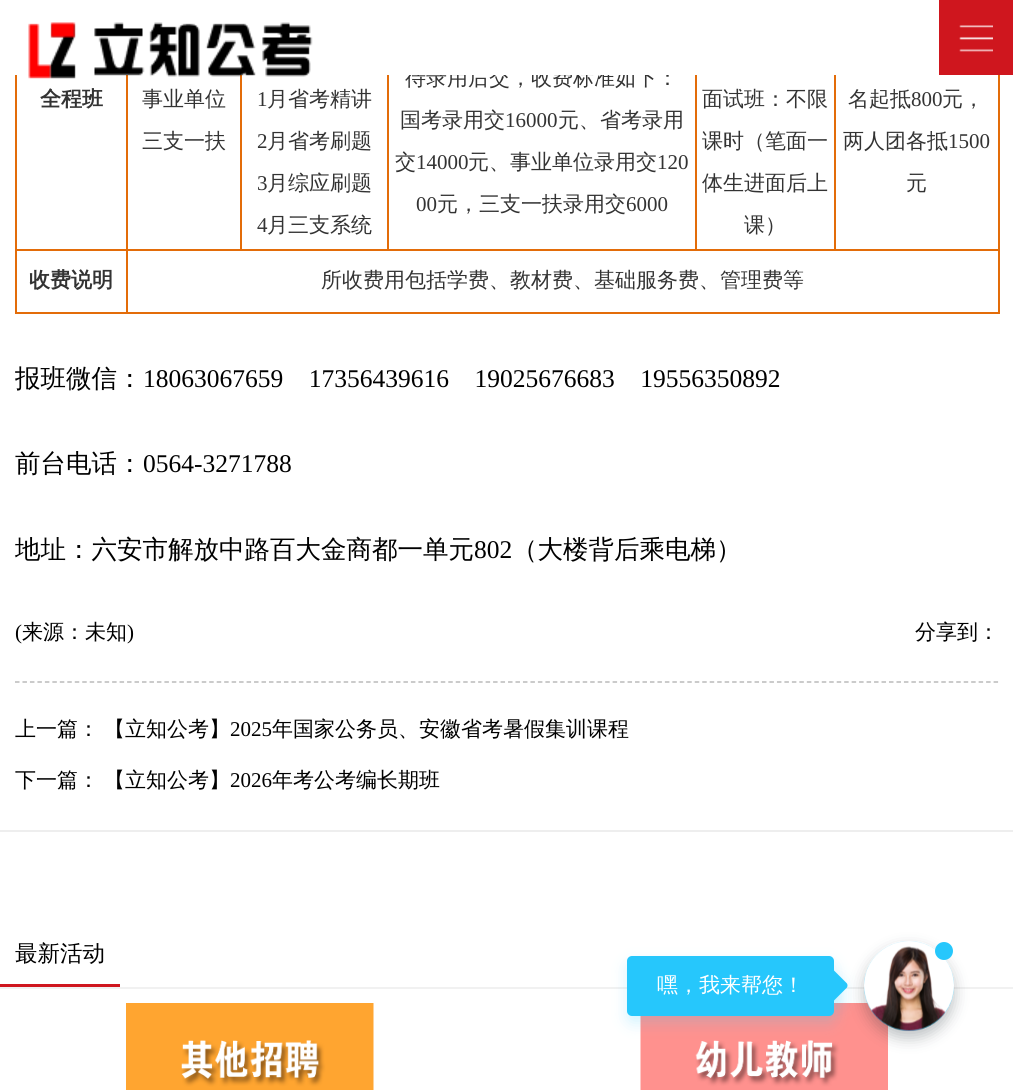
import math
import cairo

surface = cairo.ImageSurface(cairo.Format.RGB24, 1013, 1090)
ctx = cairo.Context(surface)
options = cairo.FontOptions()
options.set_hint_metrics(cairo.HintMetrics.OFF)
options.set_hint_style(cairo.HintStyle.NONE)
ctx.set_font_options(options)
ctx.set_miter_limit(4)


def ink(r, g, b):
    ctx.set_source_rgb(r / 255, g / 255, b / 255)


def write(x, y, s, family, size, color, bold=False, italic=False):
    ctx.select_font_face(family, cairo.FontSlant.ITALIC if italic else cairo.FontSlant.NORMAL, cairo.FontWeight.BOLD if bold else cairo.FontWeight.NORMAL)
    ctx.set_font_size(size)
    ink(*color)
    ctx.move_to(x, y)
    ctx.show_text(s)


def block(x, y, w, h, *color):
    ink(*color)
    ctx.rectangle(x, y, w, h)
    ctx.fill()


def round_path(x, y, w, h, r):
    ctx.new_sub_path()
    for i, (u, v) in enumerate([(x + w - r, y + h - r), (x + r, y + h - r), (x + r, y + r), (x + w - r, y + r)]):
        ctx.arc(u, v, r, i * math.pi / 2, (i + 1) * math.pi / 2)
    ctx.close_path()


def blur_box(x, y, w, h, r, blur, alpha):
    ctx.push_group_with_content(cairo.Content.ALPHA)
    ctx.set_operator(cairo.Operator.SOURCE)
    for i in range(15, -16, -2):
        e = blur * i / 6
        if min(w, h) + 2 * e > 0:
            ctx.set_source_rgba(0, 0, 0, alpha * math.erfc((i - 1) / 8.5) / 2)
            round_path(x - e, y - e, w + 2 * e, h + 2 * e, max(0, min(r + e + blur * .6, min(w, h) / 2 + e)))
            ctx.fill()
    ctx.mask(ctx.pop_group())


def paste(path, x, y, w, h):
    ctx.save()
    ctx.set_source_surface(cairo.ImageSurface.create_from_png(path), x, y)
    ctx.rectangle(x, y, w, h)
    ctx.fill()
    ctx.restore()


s1 = dict(family="WenQuanYi Zen Hei Medium", size=21, color=(51, 51, 51))
s2 = dict(family="WenQuanYi Zen Hei", size=21, color=(51, 51, 51), bold=True)
s3 = dict(family="Liberation Serif", size=21, color=(51, 51, 51))
s4 = dict(family="WenQuanYi Zen Hei Medium", size=25.5, color=(0, 0, 0))
s5 = dict(family="Liberation Serif", size=25.5, color=(0, 0, 0))
s6 = dict(family="Liberation Serif", size=21, color=(0, 0, 0))
s7 = dict(family="WenQuanYi Zen Hei Medium", size=21, color=(0, 0, 0))
s8 = dict(family="WenQuanYi Zen Hei Medium", size=22.5, color=(0, 0, 0))
s9 = dict(family="WenQuanYi Zen Hei Medium", size=21, color=(255, 255, 255))

ink(255, 255, 255)
ctx.paint()
write(405, 85, "待录用后交，收费标准如下：", **s1)
block(405, 67, 264, 8, 255, 255, 255)
block(126, 249, 873, 2, 227, 108, 9)
block(998, 75, 2, 239, 227, 108, 9)
block(126, 312, 873, 2, 227, 108, 9)
block(126, 249, 2, 65, 227, 108, 9)
block(15, 249, 113, 2, 227, 108, 9)
block(126, 75, 2, 176, 227, 108, 9)
block(240, 75, 2, 176, 227, 108, 9)
paste("pic1.png", 28, 22, 285, 57)
block(939, 0, 74, 75, 207, 22, 30)
paste("pic2.png", 959, 25, 34, 27)
write(40, 106, "全程班", **s2)
write(142, 106, "事业单位", **s1)
write(142, 148, "三支一扶", **s1)
write(257, 106, "1", **s3)
write(267, 106, "月省考精讲", **s1)
write(257, 148, "2", **s3)
write(267, 148, "月省考刷题", **s1)
write(257, 190, "3", **s3)
write(267, 190, "月综应刷题", **s1)
write(257, 232, "4", **s3)
write(267, 232, "月三支系统", **s1)
block(387, 75, 2, 176, 227, 108, 9)
write(400, 127, "国考录用交", **s1)
write(505, 127, "16000", **s3)
write(558, 127, "元、省考录用", **s1)
write(395, 169, "交", **s1)
write(416, 169, "14000", **s3)
write(468, 169, "元、事业单位录用交", **s1)
write(657, 169, "120", **s3)
write(416, 211, "00", **s3)
write(437, 211, "元，三支一扶录用交", **s1)
write(626, 211, "6000", **s3)
block(695, 75, 2, 176, 227, 108, 9)
write(702, 106, "面试班：不限", **s1)
write(702, 148, "课时（笔面一", **s1)
write(702, 190, "体生进面后上", **s1)
write(744, 232, "课）", **s1)
block(834, 75, 2, 176, 227, 108, 9)
write(848, 106, "名起抵", **s1)
write(911, 106, "800", **s3)
write(942, 106, "元，", **s1)
write(843, 148, "两人团各抵", **s1)
write(948, 148, "1500", **s3)
write(906, 190, "元", **s1)
block(15, 312, 113, 2, 227, 108, 9)
block(15, 75, 2, 239, 227, 108, 9)
write(29, 287, "收费说明", **s2)
write(321, 287, "所收费用包括学费、教材费、基础服务费、管理费等", **s1)
write(15, 387, "报班微信：", **s4)
write(143, 387, "18063067659    17356439616    19025676683    19556350892", **s5)
write(15, 472, "前台电话：", **s4)
write(143, 472, "0564-3271788", **s5)
write(15, 558, "地址：六安市解放中路百大金商都一单元", **s4)
write(474, 558, "802", **s5)
write(512, 558, "（大楼背后乘电梯）", **s4)
write(15, 639, "(", **s6)
write(22, 639, "来源：未知", **s7)
write(127, 639, ")", **s6)
write(915, 639, "分享到：", **s7)
ctx.new_path()
ctx.move_to(15, 682)
ctx.line_to(999, 682)
ink(186, 186, 186)
ctx.set_line_width(1.5)
ctx.set_dash([4.5, 2.97])
ctx.stroke()
write(15, 736, "上一篇：", **s7)
write(104, 736, "【立知公考】", **s7)
write(230, 736, "2025", **s6)
write(272, 736, "年国家公务员、安徽省考暑假集训课程", **s7)
write(15, 787, "下一篇：", **s7)
write(104, 787, "【立知公考】", **s7)
write(230, 787, "2026", **s6)
write(272, 787, "年考公考编长期班", **s7)
block(0, 830, 1013, 2, 238, 238, 238)
write(15, 961, "最新活动", **s8)
block(0, 984, 120, 3, 207, 22, 30)
block(0, 987, 1013, 2, 241, 241, 241)
paste("pic3.png", 126, 1003, 248, 87)
paste("pic4.png", 640, 1003, 248, 87)
ink(35, 50, 56)
blur_box(864, 948, 90, 90, 45, 7.5, 0.3)
ink(38, 199, 252)
blur_box(813, 978, 30, 30, 5, 7.5, 0.2)
ctx.set_source_rgba(0.149, 0.78, 0.988, 0.25)
ctx.arc(909, 986, 45, 0, 2 * math.pi)
ctx.fill()
ctx.arc(909, 986, 45, 0, 2 * math.pi)
ctx.fill()
ctx.arc(909, 986, 45, 0, 2 * math.pi)
ctx.fill()
paste("pic5.png", 864, 941, 90, 90)
ink(38, 199, 252)
ctx.arc(944, 951, 9, 0, 2 * math.pi)
ctx.fill()
ink(38, 199, 252)
blur_box(627, 963, 207, 60, 5, 7.5, 0.2)
ink(38, 199, 252)
ctx.new_path()
ctx.move_to(810, 982.5)
ctx.line_to(825, 967.5)
ctx.curve_to(826.5, 965.5, 829.5, 965.5, 831, 967.5)
ctx.line_to(846, 982.5)
ctx.curve_to(848, 984, 848, 987, 846, 988.5)
ctx.line_to(831, 1003.5)
ctx.curve_to(829.5, 1005.5, 826.5, 1005.5, 825, 1003.5)
ctx.line_to(810, 988.5)
ctx.curve_to(808, 987, 808, 984, 810, 982.5)
ctx.close_path()
ctx.fill()
round_path(627, 956, 207, 60, 5)
ctx.fill()
write(657, 992, "嘿，我来帮您！", **s9)
surface.write_to_png("screenshot.png")
